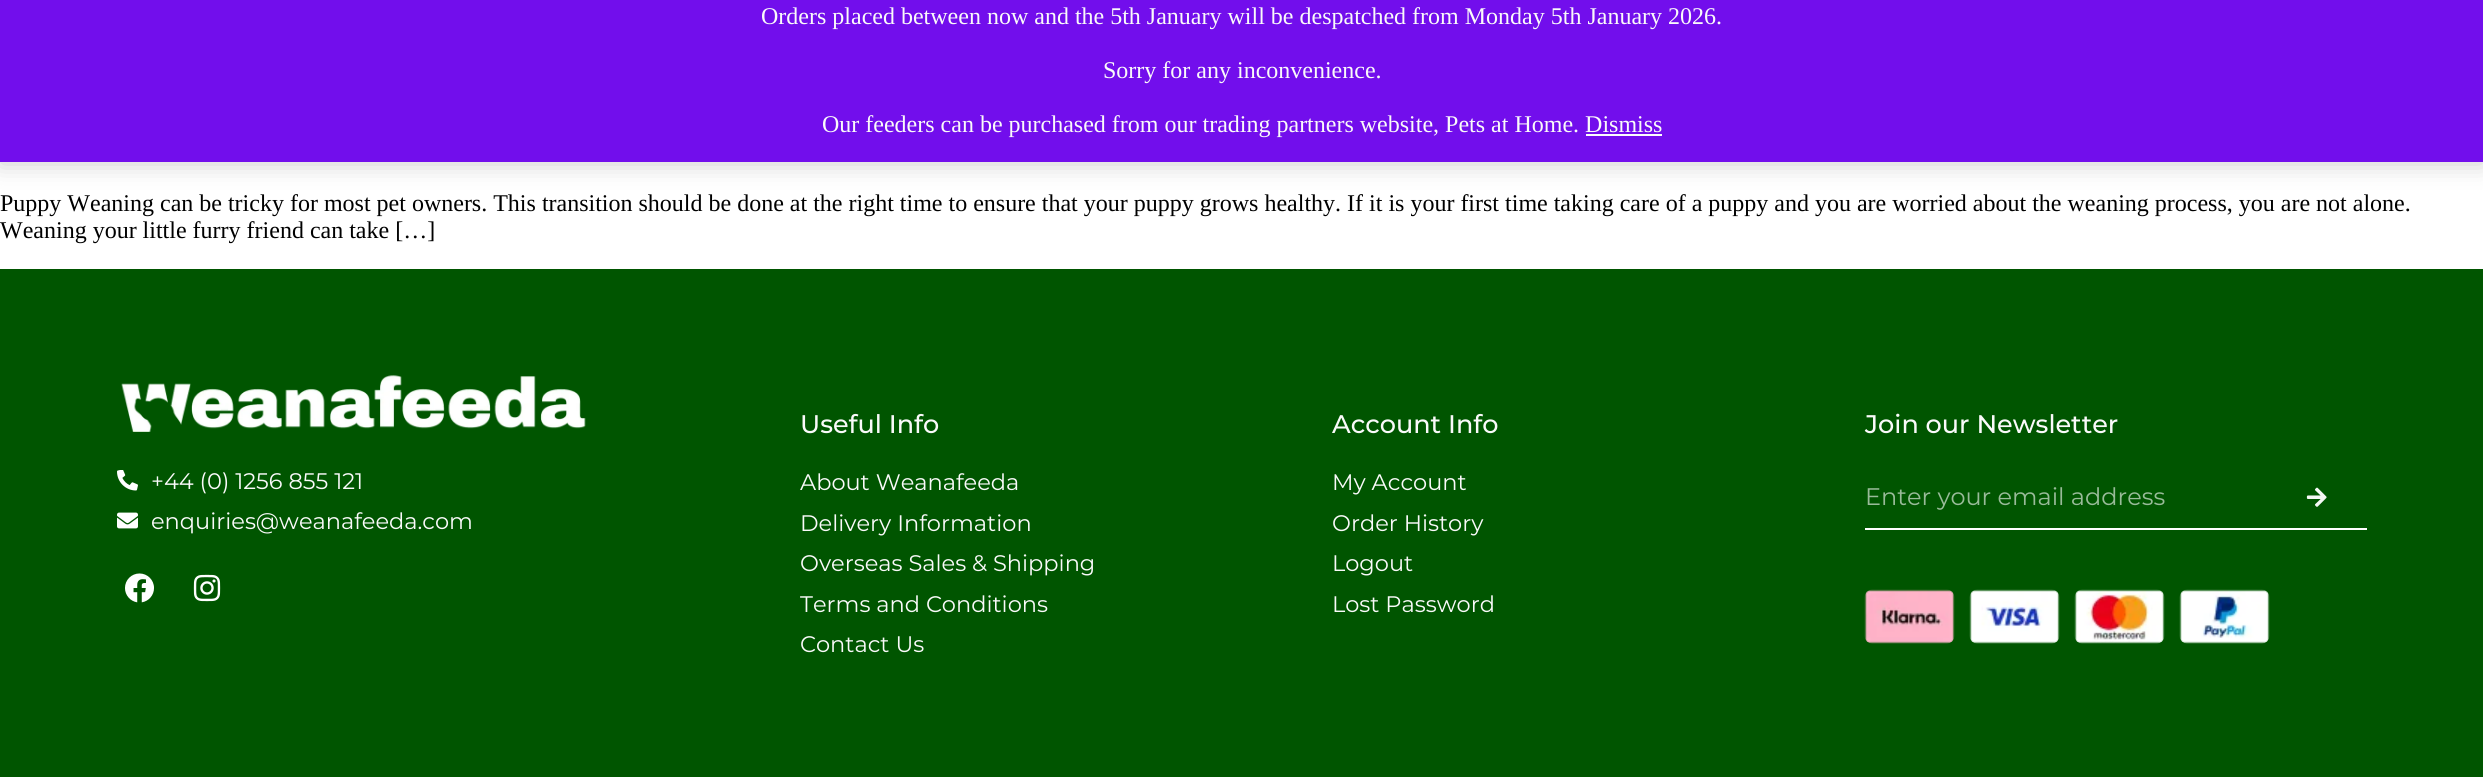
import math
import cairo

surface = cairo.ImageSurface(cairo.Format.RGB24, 2483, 777)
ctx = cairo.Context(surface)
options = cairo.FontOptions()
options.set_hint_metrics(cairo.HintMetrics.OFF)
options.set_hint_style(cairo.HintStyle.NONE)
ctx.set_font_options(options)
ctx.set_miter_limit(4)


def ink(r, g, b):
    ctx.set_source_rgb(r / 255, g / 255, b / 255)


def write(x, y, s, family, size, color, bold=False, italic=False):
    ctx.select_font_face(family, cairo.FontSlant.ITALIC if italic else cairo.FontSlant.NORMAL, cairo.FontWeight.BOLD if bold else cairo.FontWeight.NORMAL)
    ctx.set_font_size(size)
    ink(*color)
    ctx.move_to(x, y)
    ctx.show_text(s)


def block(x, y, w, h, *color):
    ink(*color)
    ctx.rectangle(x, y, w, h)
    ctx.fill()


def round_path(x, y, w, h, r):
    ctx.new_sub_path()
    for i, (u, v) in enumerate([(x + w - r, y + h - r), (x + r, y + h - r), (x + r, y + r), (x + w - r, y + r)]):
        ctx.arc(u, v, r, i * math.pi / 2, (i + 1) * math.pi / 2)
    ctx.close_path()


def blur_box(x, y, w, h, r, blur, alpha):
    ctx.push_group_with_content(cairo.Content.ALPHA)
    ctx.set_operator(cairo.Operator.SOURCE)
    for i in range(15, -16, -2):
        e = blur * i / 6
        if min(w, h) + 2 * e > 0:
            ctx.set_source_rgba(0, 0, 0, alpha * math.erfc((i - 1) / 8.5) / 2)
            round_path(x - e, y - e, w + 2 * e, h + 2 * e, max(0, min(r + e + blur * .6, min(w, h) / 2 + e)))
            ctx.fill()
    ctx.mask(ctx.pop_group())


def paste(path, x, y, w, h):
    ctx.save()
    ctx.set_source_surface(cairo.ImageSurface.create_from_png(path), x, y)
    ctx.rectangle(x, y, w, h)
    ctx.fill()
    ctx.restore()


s1 = dict(family="Liberation Serif", size=24, color=(250, 250, 250))
s2 = dict(family="Liberation Serif", size=24, color=(0, 0, 0))
s3 = dict(family="Montserrat", size=22.5, color=(250, 250, 250))
s4 = dict(family="Montserrat Medium", size=25.5, color=(250, 250, 250))
s5 = dict(family="Montserrat", size=24, color=(153, 187, 153))

ink(255, 255, 255)
ctx.paint()
ink(0, 0, 0)
blur_box(0, -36, 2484, 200, 0, 12, 0.2)
block(0, 0, 2483, 162, 114, 14, 236)
write(761, 24, "Orders placed between now and the 5th January will be despatched from Monday 5th January 2026.", **s1)
write(1103, 78, "Sorry for any inconvenience.", **s1)
write(822, 132, "Our feeders can be purchased from our trading partners website, Pets at Home. Dismiss", **s1)
block(1586, 134, 76, 2, 252, 251, 254)
write(0, 211, "Puppy Weaning can be tricky for most pet owners. This transition should be done at the right time to ensure that your puppy grows healthy. If it is your first time taking care of a puppy and you are worried about the weaning process, you are not alone.", **s2)
write(0, 238, "Weaning your little furry friend can take […]", **s2)
block(0, 269, 2483, 508, 0, 85, 0)
paste("pic1.png", 121, 375, 465, 57)
paste("pic2.png", 117, 470, 21, 21)
write(151, 489, "+44 (0) 1256 855 121", **s3)
paste("pic3.png", 117, 512, 21, 17)
write(151, 529, "enquiries@weanafeeda.com", **s3)
paste("pic4.png", 125, 573, 29, 30)
paste("pic5.png", 193, 574, 28, 28)
write(800, 433, "Useful Info", **s4)
write(800, 490, "About Weanafeeda", **s3)
write(800, 531, "Delivery Information", **s3)
write(800, 571, "Overseas Sales & Shipping", **s3)
write(800, 612, "Terms and Conditions", **s3)
write(800, 652, "Contact Us", **s3)
write(1332, 433, "Account Info", **s4)
write(1332, 490, "My Account", **s3)
write(1332, 531, "Order History", **s3)
write(1332, 571, "Logout", **s3)
write(1332, 612, "Lost Password", **s3)
write(1865, 433, "Join our Newsletter", **s4)
block(1865, 528, 502, 2, 255, 255, 255)
write(1865, 505, "Enter your email address", **s5)
paste("pic6.png", 2306, 487, 21, 20)
paste("pic7.png", 1864, 589, 91, 55)
paste("pic8.png", 1969, 589, 91, 55)
paste("pic9.png", 2074, 589, 91, 55)
paste("pic10.png", 2179, 589, 91, 55)
surface.write_to_png("screenshot.png")
